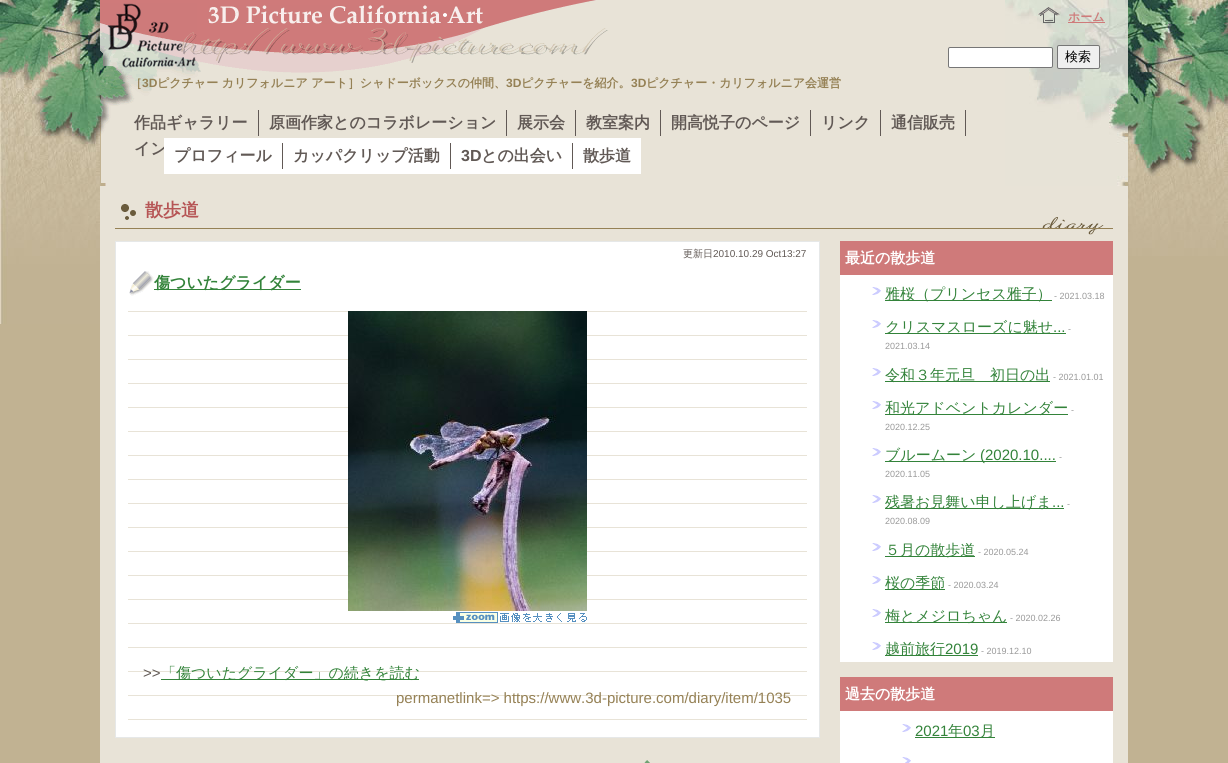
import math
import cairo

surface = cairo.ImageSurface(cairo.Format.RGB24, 1228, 763)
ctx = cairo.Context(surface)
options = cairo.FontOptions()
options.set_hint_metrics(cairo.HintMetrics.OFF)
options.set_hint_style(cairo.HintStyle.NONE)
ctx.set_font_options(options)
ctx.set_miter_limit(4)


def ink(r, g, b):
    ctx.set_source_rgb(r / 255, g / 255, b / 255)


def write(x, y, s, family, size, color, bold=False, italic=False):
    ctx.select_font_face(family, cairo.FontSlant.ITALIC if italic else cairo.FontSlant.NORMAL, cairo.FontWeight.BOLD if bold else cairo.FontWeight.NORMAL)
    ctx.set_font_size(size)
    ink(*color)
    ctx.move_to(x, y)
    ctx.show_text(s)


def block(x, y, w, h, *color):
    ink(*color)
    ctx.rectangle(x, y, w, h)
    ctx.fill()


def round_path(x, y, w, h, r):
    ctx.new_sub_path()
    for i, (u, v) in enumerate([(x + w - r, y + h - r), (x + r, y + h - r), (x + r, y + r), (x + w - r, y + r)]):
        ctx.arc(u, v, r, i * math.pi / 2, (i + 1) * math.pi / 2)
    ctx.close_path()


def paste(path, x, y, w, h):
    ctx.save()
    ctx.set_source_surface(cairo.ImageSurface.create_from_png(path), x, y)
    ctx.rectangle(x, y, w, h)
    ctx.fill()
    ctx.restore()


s1 = dict(family="WenQuanYi Zen Hei", size=12, color=(207, 122, 122), bold=True)
s2 = dict(family="WenQuanYi Zen Hei Medium", size=13, color=(0, 0, 0))
s3 = dict(family="WenQuanYi Zen Hei", size=12, color=(149, 129, 85), bold=True)
s4 = dict(family="Liberation Sans", size=12, color=(149, 129, 85), bold=True)
s5 = dict(family="WenQuanYi Zen Hei", size=16, color=(97, 89, 85), bold=True)
s6 = dict(family="Liberation Sans", size=16, color=(97, 89, 85), bold=True)
s7 = dict(family="WenQuanYi Zen Hei", size=18, color=(182, 85, 85), bold=True)
s8 = dict(family="WenQuanYi Zen Hei Medium", size=10, color=(97, 89, 85))
s9 = dict(family="Liberation Sans", size=10, color=(97, 89, 85))
s10 = dict(family="WenQuanYi Zen Hei", size=16, color=(51, 131, 58), bold=True)
s11 = dict(family="Liberation Sans", size=15, color=(97, 89, 85))
s12 = dict(family="WenQuanYi Zen Hei Medium", size=15, color=(51, 131, 58))
s13 = dict(family="Liberation Sans", size=15, color=(149, 129, 85))
s14 = dict(family="WenQuanYi Zen Hei", size=15, color=(255, 255, 255), bold=True)
s15 = dict(family="Liberation Sans", size=9, color=(153, 153, 153))
s16 = dict(family="Liberation Sans", size=15, color=(51, 131, 58))

ink(193, 178, 146)
ctx.paint()
paste("pic1.png", 0, 0, 100, 324)
paste("pic2.png", 1128, 0, 100, 256)
block(608, 0, 397, 186, 232, 227, 215)
paste("pic3.png", 1005, 0, 123, 186)
paste("pic4.png", 100, 0, 508, 186)
paste("pic5.png", 208, 5, 275, 19)
paste("pic6.png", 1038, 7, 22, 16)
block(1068, 22, 37, 1, 207, 122, 122)
write(1068, 21, "ホーム", **s1)
ink(255, 255, 255)
round_path(948.5, 47.5, 104, 20, 1.5)
ctx.fill_preserve()
ink(118, 118, 118)
ctx.set_line_width(1)
ctx.stroke()
ink(239, 239, 239)
round_path(1057.5, 45.5, 42, 23, 1.5)
ctx.fill_preserve()
ink(118, 118, 118)
ctx.stroke()
write(1065, 61, "検索", **s2)
paste("pic7.png", 100, 3, 97, 66)
write(130, 87, "［", **s3)
write(142, 87, "3D", **s4)
write(157, 87, "ピクチャー カリフォルニア アート］シャドーボックスの仲間、", **s3)
write(506, 87, "3D", **s4)
write(521, 87, "ピクチャーを紹介。", **s3)
write(631, 87, "3D", **s4)
write(646, 87, "ピクチャー・カリフォルニア会運営", **s3)
block(810, 110, 1, 26, 97, 89, 85)
write(671, 128, "開高悦子のページ", **s5)
write(134, 154, "イン", **s5)
block(164, 138, 477, 36, 255, 255, 255)
block(282, 143, 1, 26, 97, 89, 85)
write(174, 161, "プロフィール", **s5)
block(450, 143, 1, 26, 97, 89, 85)
write(293, 161, "カッパクリップ活動", **s5)
block(572, 143, 1, 26, 97, 89, 85)
write(461, 161, "3D", **s6)
write(481, 161, "との出会い", **s5)
write(583, 161, "散歩道", **s5)
block(258, 110, 1, 26, 97, 89, 85)
write(134, 128, "作品ギャラリー", **s5)
block(506, 110, 1, 26, 97, 89, 85)
write(269, 128, "原画作家とのコラボレーション", **s5)
block(575, 110, 1, 26, 97, 89, 85)
write(517, 128, "展示会", **s5)
block(660, 110, 1, 26, 97, 89, 85)
write(586, 128, "教室案内", **s5)
block(880, 110, 1, 26, 97, 89, 85)
write(821, 128, "リンク", **s5)
block(965, 110, 1, 26, 97, 89, 85)
write(891, 128, "通信販売", **s5)
block(100, 186, 1028, 577, 232, 227, 215)
paste("pic8.png", 1042, 217, 62, 18)
paste("pic9.png", 121, 204, 15, 16)
block(115, 228, 998, 1, 149, 129, 85)
write(145, 216, "散歩道", **s7)
ink(255, 255, 255)
ctx.rectangle(115.5, 241.5, 704, 496)
ctx.fill_preserve()
ink(230, 232, 232)
ctx.stroke()
write(683, 257, "更新日", **s8)
write(713, 257, "2010.10.29 Oct13:27", **s9)
paste("pic10.png", 129, 271, 25, 25)
block(154, 289, 147, 1, 51, 131, 58)
write(154, 288, "傷ついたグライダー", **s10)
paste("pic11.png", 128, 311, 679, 409)
paste("pic12.png", 348, 311, 239, 300)
paste("pic13.png", 453, 612, 134, 11)
write(143, 678, ">>", **s11)
block(161, 679, 258, 1, 51, 131, 58)
write(161, 678, "「傷ついたグライダー」の続きを読む", **s12)
write(396, 703, "permanetlink=> https://www.3d-picture.com/diary/item/1035", **s13)
paste("pic14.png", 644, 760, 6, 3)
block(840, 275, 273, 387, 255, 255, 255)
block(840, 241, 273, 34, 207, 122, 122)
write(845, 263, "最近の散歩道", **s14)
paste("pic15.png", 872, 287, 9, 8)
block(885, 300, 167, 1, 51, 131, 58)
write(885, 299, "雅桜（プリンセス雅子）", **s12)
write(1054, 299, "- 2021.03.18", **s15)
paste("pic15.png", 872, 320, 9, 8)
block(885, 333, 181, 1, 51, 131, 58)
write(885, 332, "クリスマスローズに魅せ", **s12)
write(1068, 332, "-", **s15)
write(1053, 332, "...", **s16)
write(885, 349, "2021.03.14", **s15)
paste("pic15.png", 872, 368, 9, 8)
block(885, 381, 165, 1, 51, 131, 58)
write(885, 380, "令和３年元旦　初日の出", **s12)
write(1053, 380, "- 2021.01.01", **s15)
paste("pic15.png", 872, 401, 9, 8)
block(885, 414, 183, 1, 51, 131, 58)
write(885, 413, "和光アドベントカレンダー", **s12)
write(1071, 413, "-", **s15)
write(885, 430, "2020.12.25", **s15)
paste("pic15.png", 872, 448, 9, 8)
block(885, 461, 171, 1, 51, 131, 58)
write(885, 460, "ブルームーン", **s12)
write(980, 460, "(2020.10....", **s16)
write(1059, 460, "-", **s15)
write(885, 477, "2020.11.05", **s15)
paste("pic15.png", 872, 495, 9, 8)
block(885, 508, 179, 1, 51, 131, 58)
write(885, 507, "残暑お見舞い申し上げま", **s12)
write(1067, 507, "-", **s15)
write(1052, 507, "...", **s16)
write(885, 524, "2020.08.09", **s15)
paste("pic15.png", 872, 543, 9, 8)
block(885, 556, 90, 1, 51, 131, 58)
write(885, 555, "５月の散歩道", **s12)
write(978, 555, "- 2020.05.24", **s15)
paste("pic15.png", 872, 576, 9, 8)
block(885, 589, 60, 1, 51, 131, 58)
write(885, 588, "桜の季節", **s12)
write(948, 588, "- 2020.03.24", **s15)
paste("pic15.png", 872, 609, 9, 8)
block(885, 622, 122, 1, 51, 131, 58)
write(885, 621, "梅とメジロちゃん", **s12)
write(1010, 621, "- 2020.02.26", **s15)
paste("pic15.png", 872, 642, 9, 8)
block(885, 655, 93, 1, 51, 131, 58)
write(885, 654, "越前旅行", **s12)
write(945, 654, "2019", **s16)
write(981, 654, "- 2019.12.10", **s15)
block(840, 711, 273, 52, 255, 255, 255)
block(840, 677, 273, 34, 207, 122, 122)
write(845, 699, "過去の散歩道", **s14)
paste("pic15.png", 902, 724, 9, 8)
write(915, 736, "2021", **s16)
block(915, 737, 80, 1, 51, 131, 58)
write(948, 736, "年", **s12)
write(963, 736, "03", **s16)
write(980, 736, "月", **s12)
paste("pic16.png", 902, 757, 9, 6)
surface.write_to_png("screenshot.png")
